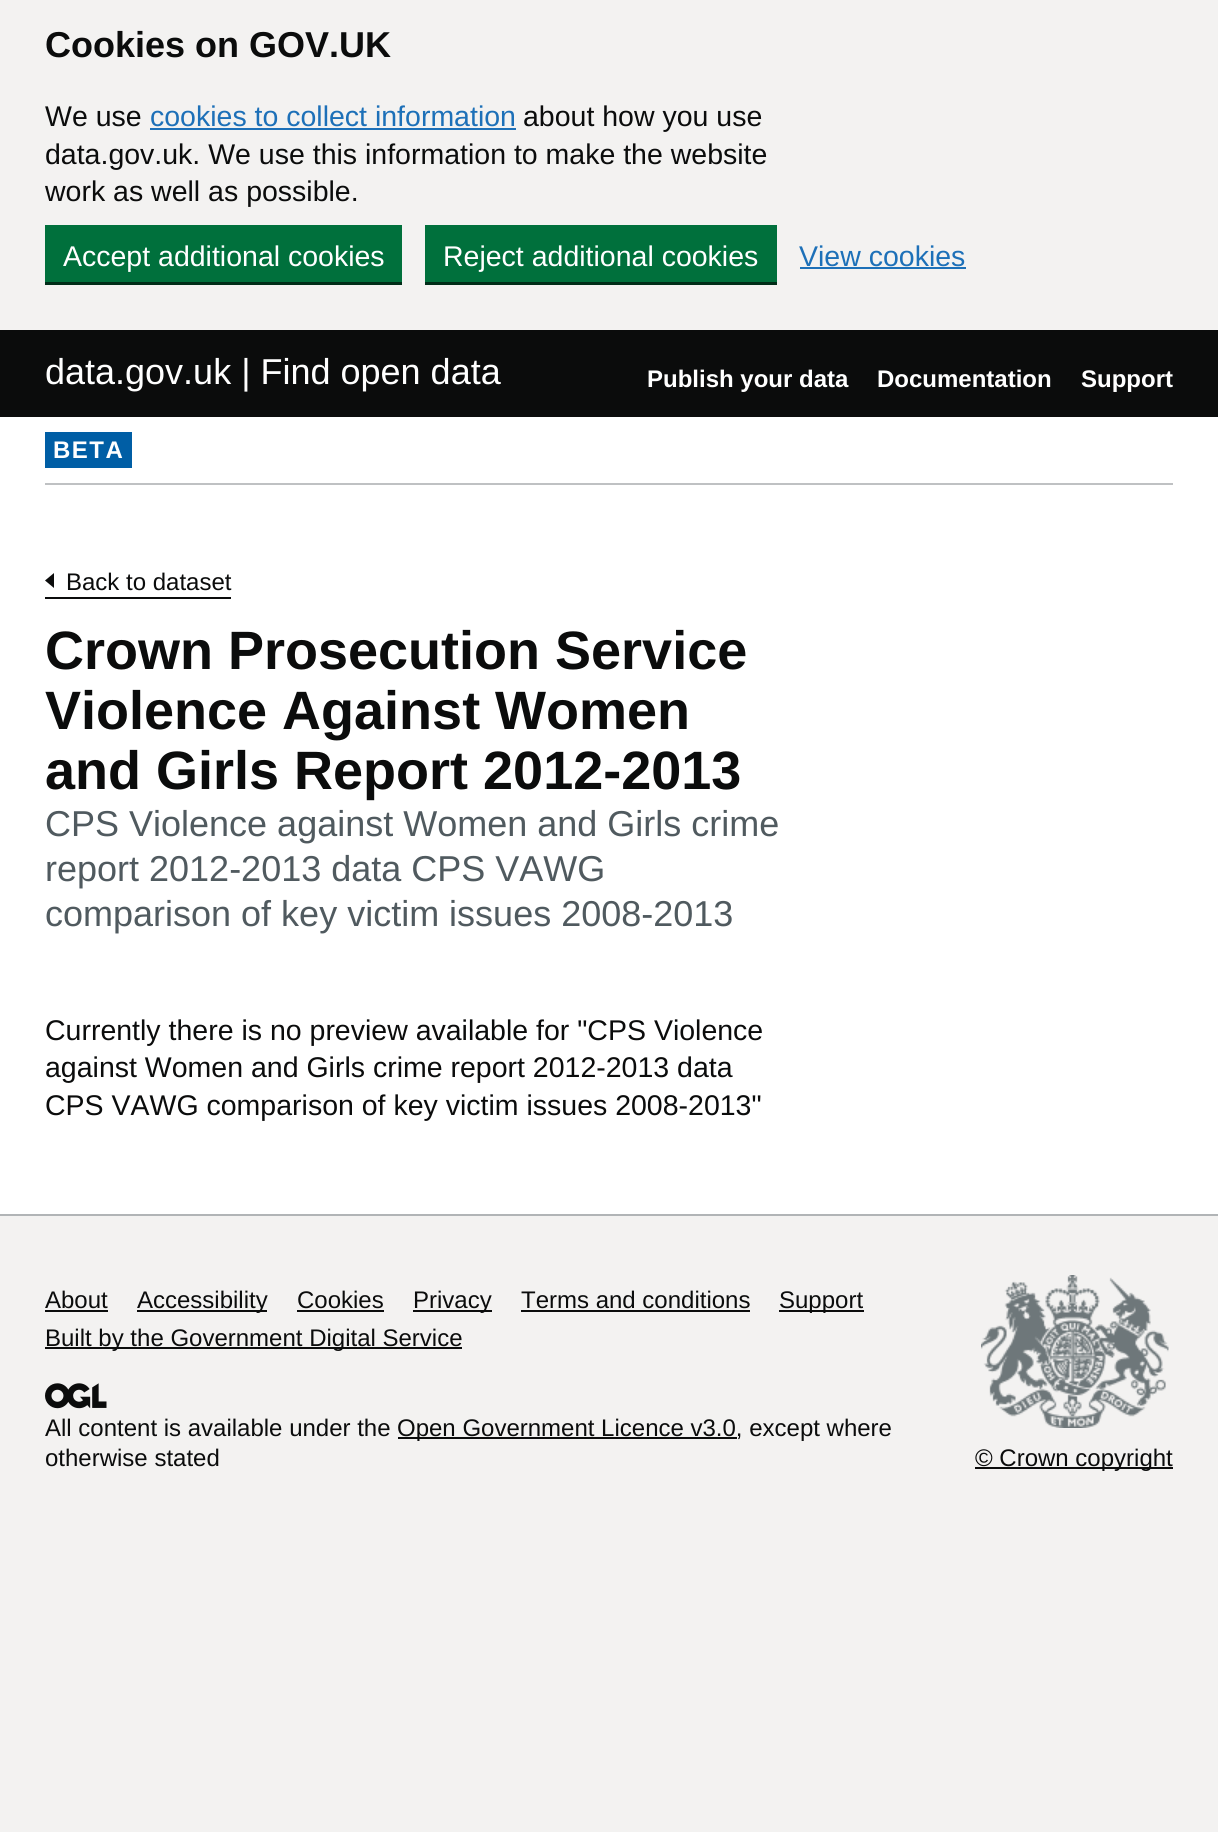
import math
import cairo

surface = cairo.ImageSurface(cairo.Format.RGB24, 1218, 1832)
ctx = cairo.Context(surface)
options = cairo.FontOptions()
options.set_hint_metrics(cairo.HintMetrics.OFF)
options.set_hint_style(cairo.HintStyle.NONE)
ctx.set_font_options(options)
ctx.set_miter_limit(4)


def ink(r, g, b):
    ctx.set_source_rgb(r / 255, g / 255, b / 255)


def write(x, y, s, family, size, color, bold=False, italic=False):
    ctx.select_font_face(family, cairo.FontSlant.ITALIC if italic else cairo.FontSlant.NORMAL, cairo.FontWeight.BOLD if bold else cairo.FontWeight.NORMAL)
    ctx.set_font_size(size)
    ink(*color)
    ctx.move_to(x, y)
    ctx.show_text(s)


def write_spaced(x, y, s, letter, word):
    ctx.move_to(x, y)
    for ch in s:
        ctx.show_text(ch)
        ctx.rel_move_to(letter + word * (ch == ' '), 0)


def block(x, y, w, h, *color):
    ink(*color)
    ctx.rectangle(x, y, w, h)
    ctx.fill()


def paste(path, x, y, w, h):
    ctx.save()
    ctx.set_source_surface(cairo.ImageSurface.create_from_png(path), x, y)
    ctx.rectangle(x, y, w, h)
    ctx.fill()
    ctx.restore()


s1 = dict(family="Liberation Sans", size=36, color=(11, 12, 12), bold=True)
s2 = dict(family="Liberation Sans", size=28.5, color=(11, 12, 12))
s3 = dict(family="Liberation Sans", size=28.5, color=(29, 112, 184))
s4 = dict(family="Liberation Sans", size=28.5, color=(255, 255, 255))
s5 = dict(family="Liberation Sans", size=36, color=(255, 255, 255))
s6 = dict(family="Liberation Sans", size=24, color=(255, 255, 255), bold=True)
s7 = dict(family="Liberation Sans", size=24, color=(11, 12, 12))
s8 = dict(family="Liberation Sans", size=54, color=(11, 12, 12), bold=True)
s9 = dict(family="Liberation Sans", size=36, color=(80, 90, 95))

ink(243, 242, 241)
ctx.paint()
block(0, 417, 1218, 797, 255, 255, 255)
write(45, 57, "Cookies on GOV.UK", **s1)
write(45, 126, "We use", **s2)
write(150, 126, "cookies to collect information", **s3)
block(150, 128, 366, 2, 29, 112, 184)
write(523, 126, "about how you use", **s2)
write(45, 164, "data.gov.uk. We use this information to make the website", **s2)
write(45, 201, "work as well as possible.", **s2)
block(45, 282, 357, 3, 0, 45, 24)
block(45, 225, 357, 57, 0, 112, 60)
write(63, 266, "Accept additional cookies", **s4)
block(425, 282, 352, 3, 0, 45, 24)
block(425, 225, 352, 57, 0, 112, 60)
write(443, 266, "Reject additional cookies", **s4)
write(799, 266, "View cookies", **s3)
block(800, 267, 166, 2, 29, 112, 184)
block(0, 330, 1218, 87, 11, 12, 12)
write(45, 384, "data.gov.uk | Find open data", **s5)
write(647, 387, "Publish your data", **s6)
write(877, 387, "Documentation", **s6)
write(1081, 387, "Support", **s6)
block(45, 483, 1128, 2, 191, 193, 195)
block(45, 432, 87, 36, 0, 94, 165)
ink(255, 255, 255)
write_spaced(53, 458, "BETA", 1.5, 0)
block(45, 597, 186, 2, 11, 12, 12)
ctx.new_path()
ctx.move_to(54, 573)
ctx.line_to(54, 588)
ctx.line_to(45, 580.5)
ctx.close_path()
ctx.fill()
write(66, 590, "Back to dataset", **s7)
write(45, 669, "Crown Prosecution Service", **s8)
write(45, 729, "Violence Against Women", **s8)
write(45, 789, "and Girls Report 2012-2013", **s8)
write(45, 836, "CPS Violence against Women and Girls crime", **s9)
write(45, 881, "report 2012-2013 data CPS VAWG", **s9)
write(45, 926, "comparison of key victim issues 2008-2013", **s9)
write(45, 1040, "Currently there is no preview available for \"CPS Violence", **s2)
write(45, 1077, "against Women and Girls crime report 2012-2013 data", **s2)
write(45, 1115, "CPS VAWG comparison of key victim issues 2008-2013\"", **s2)
block(0, 1214, 1218, 2, 177, 180, 182)
write(45, 1308, "About", **s7)
block(45, 1310, 63, 2, 11, 12, 12)
block(137, 1310, 130, 2, 11, 12, 12)
write(137, 1308, "Accessibility", **s7)
write(297, 1308, "Cookies", **s7)
block(297, 1310, 87, 2, 11, 12, 12)
block(413, 1310, 79, 2, 11, 12, 12)
write(413, 1308, "Privacy", **s7)
write(521, 1308, "Terms and conditions", **s7)
block(521, 1310, 229, 2, 11, 12, 12)
block(779, 1310, 85, 2, 11, 12, 12)
write(779, 1308, "Support", **s7)
block(45, 1347, 417, 2, 11, 12, 12)
write(45, 1346, "Built by the Government Digital Service", **s7)
paste("pic1.png", 45, 1383, 62, 26)
write(45, 1436, "All content is available under the", **s7)
block(398, 1437, 339, 2, 11, 12, 12)
write(397, 1436, "Open Government Licence v3.0, except where", **s7)
write(45, 1466, "otherwise stated", **s7)
paste("pic2.png", 981, 1275, 188, 153)
block(975, 1467, 198, 2, 11, 12, 12)
write(975, 1466, "© Crown copyright", **s7)
surface.write_to_png("screenshot.png")
